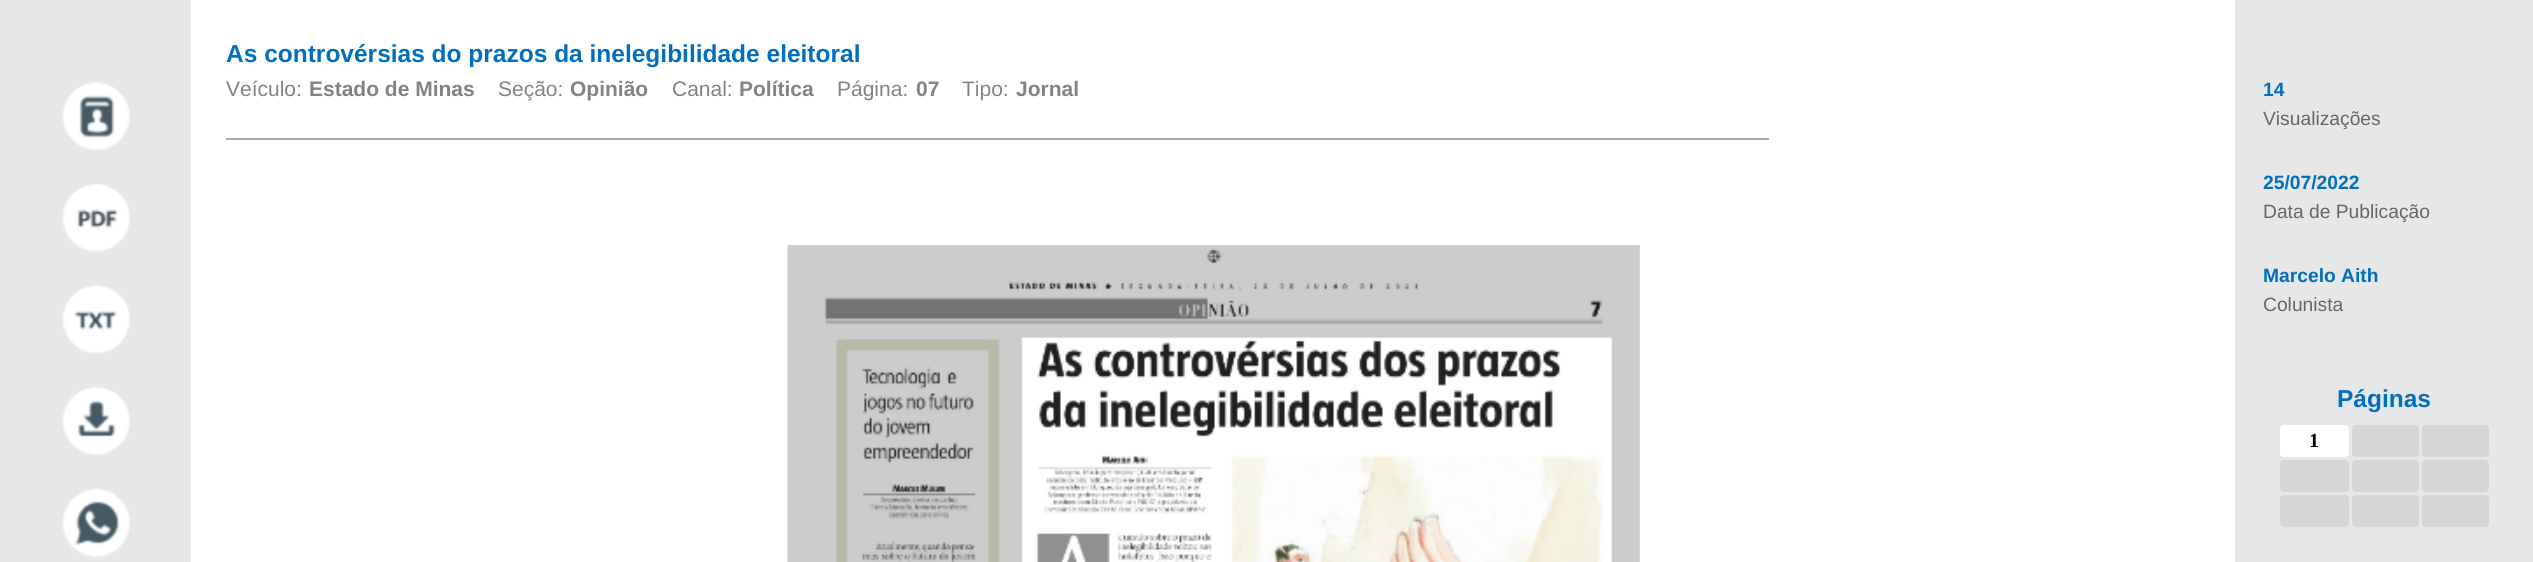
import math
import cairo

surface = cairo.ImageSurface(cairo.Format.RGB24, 2533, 562)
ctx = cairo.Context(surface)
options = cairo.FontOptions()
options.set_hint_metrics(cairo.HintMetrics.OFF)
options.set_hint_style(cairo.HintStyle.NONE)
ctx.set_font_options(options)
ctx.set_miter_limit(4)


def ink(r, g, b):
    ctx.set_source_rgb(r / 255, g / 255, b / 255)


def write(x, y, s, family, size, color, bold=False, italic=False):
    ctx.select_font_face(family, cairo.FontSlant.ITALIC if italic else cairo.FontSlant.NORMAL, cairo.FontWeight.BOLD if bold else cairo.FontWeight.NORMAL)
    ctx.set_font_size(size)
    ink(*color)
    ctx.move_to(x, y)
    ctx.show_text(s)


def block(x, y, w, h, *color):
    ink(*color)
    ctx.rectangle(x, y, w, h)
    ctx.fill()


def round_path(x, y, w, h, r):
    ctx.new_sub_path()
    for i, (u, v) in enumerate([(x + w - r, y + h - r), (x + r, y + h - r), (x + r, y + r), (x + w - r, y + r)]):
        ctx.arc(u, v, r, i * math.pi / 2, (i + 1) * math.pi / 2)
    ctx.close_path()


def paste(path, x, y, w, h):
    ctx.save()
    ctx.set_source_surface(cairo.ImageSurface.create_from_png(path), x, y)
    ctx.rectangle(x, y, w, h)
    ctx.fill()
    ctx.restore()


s1 = dict(family="Liberation Sans", size=24.5, color=(0, 111, 190), bold=True)
s2 = dict(family="Liberation Sans", size=21, color=(131, 131, 131))
s3 = dict(family="Liberation Sans", size=21, color=(131, 131, 131), bold=True)
s4 = dict(family="Liberation Sans", size=19.25, color=(0, 111, 190), bold=True)
s5 = dict(family="Liberation Sans", size=19.25, color=(102, 102, 102))
s6 = dict(family="Liberation Serif", size=20, color=(0, 0, 0), bold=True)

ink(255, 255, 255)
ctx.paint()
block(0, 0, 191, 562, 230, 231, 233)
paste("pic1.png", 62, 82, 68, 69)
paste("pic2.png", 62, 184, 68, 68)
paste("pic3.png", 62, 285, 68, 69)
paste("pic4.png", 62, 387, 68, 69)
paste("pic5.png", 62, 488, 68, 69)
write(226, 62, "As controvérsias do prazos da inelegibilidade eleitoral", **s1)
write(226, 96, "Veículo:", **s2)
write(309, 96, "Estado de Minas", **s3)
write(498, 96, "Seção:", **s2)
write(570, 96, "Opinião", **s3)
write(672, 96, "Canal:", **s2)
write(739, 96, "Política", **s3)
write(837, 96, "Página:", **s2)
write(916, 96, "07", **s3)
write(962, 96, "Tipo:", **s2)
write(1016, 96, "Jornal", **s3)
block(226, 138, 1543, 2, 168, 168, 168)
paste("pic6.png", 787, 245, 853, 317)
block(2235, 0, 298, 562, 230, 231, 233)
write(2263, 96, "14", **s4)
write(2263, 125, "Visualizações", **s5)
write(2263, 189, "25/07/2022", **s4)
write(2263, 218, "Data de Publicação", **s5)
write(2263, 282, "Marcelo Aith", **s4)
write(2263, 311, "Colunista", **s5)
write(2337, 407, "Páginas", **s1)
ink(255, 255, 255)
round_path(2280, 425, 69, 32, 4)
ctx.fill()
write(2309, 447, "1", **s6)
ink(213, 214, 215)
round_path(2352, 425, 67, 32, 4)
ctx.fill()
round_path(2422, 425, 67, 32, 4)
ctx.fill()
round_path(2280, 460, 69, 32, 4)
ctx.fill()
round_path(2352, 460, 67, 32, 4)
ctx.fill()
round_path(2422, 460, 67, 32, 4)
ctx.fill()
round_path(2280, 495, 69, 32, 4)
ctx.fill()
round_path(2352, 495, 67, 32, 4)
ctx.fill()
round_path(2422, 495, 67, 32, 4)
ctx.fill()
surface.write_to_png("screenshot.png")
